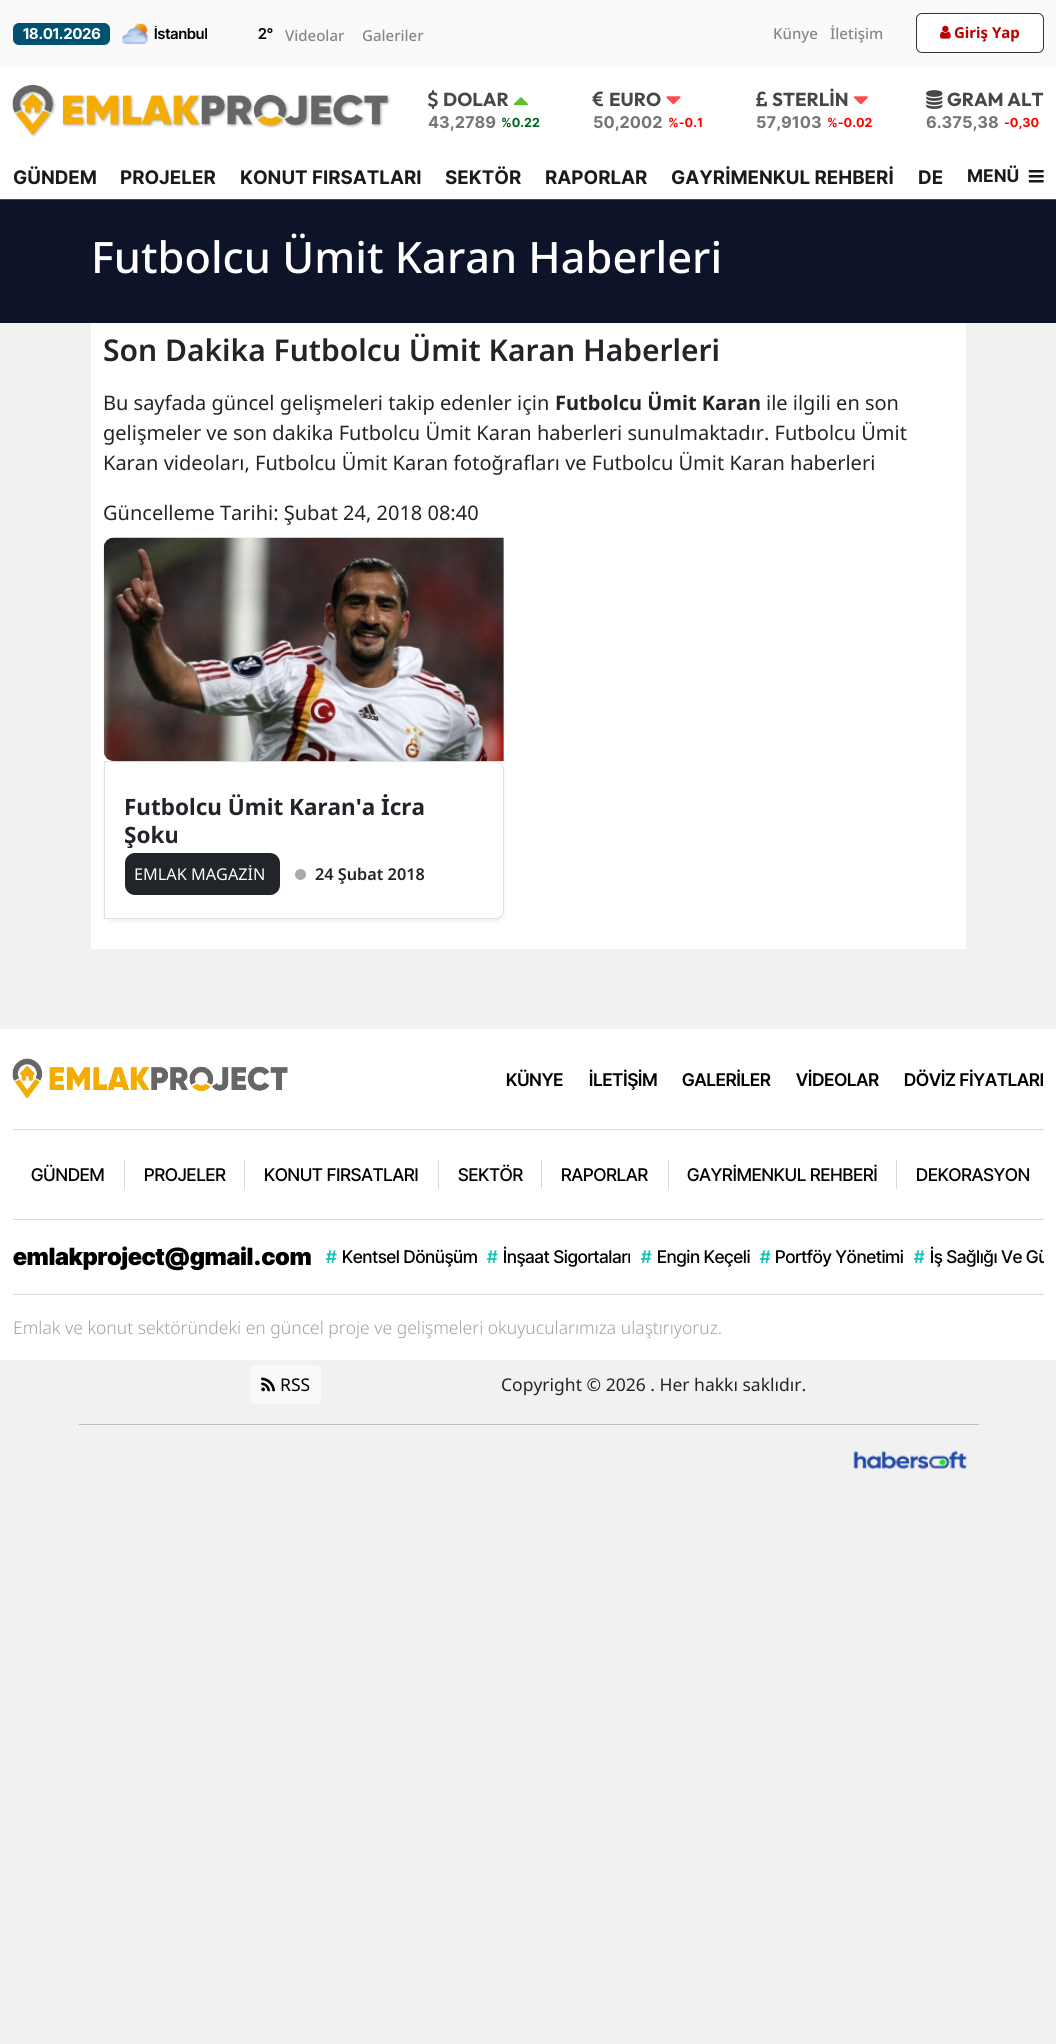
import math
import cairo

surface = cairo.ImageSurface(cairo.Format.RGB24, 1056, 2044)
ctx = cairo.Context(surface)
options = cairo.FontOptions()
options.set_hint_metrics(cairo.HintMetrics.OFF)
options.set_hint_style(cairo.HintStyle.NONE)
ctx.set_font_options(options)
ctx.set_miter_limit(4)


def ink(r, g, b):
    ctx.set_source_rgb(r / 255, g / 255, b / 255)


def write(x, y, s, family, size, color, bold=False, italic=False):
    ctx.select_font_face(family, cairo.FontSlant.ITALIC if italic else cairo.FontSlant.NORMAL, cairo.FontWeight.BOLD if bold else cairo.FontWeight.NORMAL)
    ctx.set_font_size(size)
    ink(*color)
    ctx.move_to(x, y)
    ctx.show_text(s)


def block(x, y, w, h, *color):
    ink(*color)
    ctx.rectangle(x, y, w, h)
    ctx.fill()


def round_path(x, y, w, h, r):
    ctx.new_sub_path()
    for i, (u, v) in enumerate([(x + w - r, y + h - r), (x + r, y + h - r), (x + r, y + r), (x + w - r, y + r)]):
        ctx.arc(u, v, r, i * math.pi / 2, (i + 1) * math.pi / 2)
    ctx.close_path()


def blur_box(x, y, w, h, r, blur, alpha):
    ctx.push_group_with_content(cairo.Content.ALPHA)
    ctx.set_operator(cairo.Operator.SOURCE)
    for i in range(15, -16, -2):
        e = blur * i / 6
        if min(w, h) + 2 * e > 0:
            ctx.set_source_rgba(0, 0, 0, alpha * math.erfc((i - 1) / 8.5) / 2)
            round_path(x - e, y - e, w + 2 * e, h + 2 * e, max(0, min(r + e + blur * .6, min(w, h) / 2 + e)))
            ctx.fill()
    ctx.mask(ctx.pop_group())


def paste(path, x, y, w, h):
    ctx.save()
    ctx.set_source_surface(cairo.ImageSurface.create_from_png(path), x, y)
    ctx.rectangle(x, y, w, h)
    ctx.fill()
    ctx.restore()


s1 = dict(family="Inter Tight", size=15, color=(255, 255, 255), bold=True)
s2 = dict(family="Inter Tight SemiBold", size=15, color=(0, 0, 0))
s3 = dict(family="Noto Sans Medium", size=15, color=(135, 135, 135))
s4 = dict(family="Noto Sans", size=15, color=(187, 0, 0), bold=True)
s5 = dict(family="Outfit", size=18.75, color=(71, 71, 71), bold=True)
s6 = dict(family="Inter", size=16.25, color=(117, 117, 117), bold=True)
s7 = dict(family="Inter", size=12.5, color=(0, 102, 29), bold=True)
s8 = dict(family="Inter", size=12.5, color=(255, 0, 0), bold=True)
s9 = dict(family="Inter", size=18.75, color=(26, 26, 26), bold=True)
s10 = dict(family="Inter", size=17.5, color=(26, 26, 26), bold=True)
s11 = dict(family="Noto Sans Medium", size=43.3, color=(255, 255, 255))
s12 = dict(family="Noto Sans SemiBold", size=30, color=(33, 37, 41))
s13 = dict(family="Noto Sans", size=20, color=(33, 37, 41))
s14 = dict(family="Noto Sans", size=20, color=(33, 37, 41), bold=True)
s15 = dict(family="Noto Sans", size=22.5, color=(33, 37, 41), bold=True)
s16 = dict(family="Noto Sans", size=16.25, color=(255, 255, 255))
s17 = dict(family="Noto Sans SemiBold", size=16.25, color=(33, 37, 41))
s18 = dict(family="Inter Tight SemiBold", size=17.5, color=(0, 0, 0))
s19 = dict(family="Inter Tight Medium", size=17.5, color=(0, 0, 0))
s20 = dict(family="Inter Tight Black", size=23.75, color=(0, 0, 0))
s21 = dict(family="Inter Tight SemiBold", size=17.5, color=(28, 194, 181))
s22 = dict(family="Noto Sans Light", size=17.5, color=(160, 160, 160))
s23 = dict(family="Noto Sans", size=17.5, color=(0, 0, 0))
s24 = dict(family="Noto Sans", size=17.5, color=(33, 37, 41))

ink(241, 241, 241)
ctx.paint()
block(0, 0, 1056, 68, 250, 250, 250)
ink(0, 82, 112)
round_path(13, 23, 97, 22, 6)
ctx.fill()
write(23, 39, "18.01.2026", **s1)
paste("pic1.png", 122, 23, 26, 21)
ctx.save()
ctx.rectangle(154, 26, 97, 15)
ctx.clip()
write(154, 39, "İstanbul", **s2)
ctx.restore()
write(258, 39, "2°", **s2)
write(285, 41, "Videolar", **s3)
write(362, 41, "Galeriler", **s3)
write(773, 39, "Künye", **s3)
write(830, 39, "İletişim", **s3)
ink(255, 255, 255)
round_path(916.5, 13.5, 127, 39, 5.5)
ctx.fill_preserve()
ink(51, 51, 51)
ctx.set_line_width(1)
ctx.stroke()
paste("pic2.png", 940, 25, 11, 14)
write(954, 38, "Giriş Yap", **s4)
block(0, 68, 1056, 131, 255, 255, 255)
paste("pic3.png", 12, 85, 379, 52)
paste("pic4.png", 428, 90, 10, 19)
write(443, 106, "DOLAR", **s5)
paste("pic5.png", 513, 97, 15, 9)
write(428, 128, "43,2789", **s6)
write(501, 127, "%0.22", **s7)
paste("pic6.png", 592, 91, 12, 16)
write(609, 106, "EURO", **s5)
paste("pic7.png", 666, 96, 15, 9)
write(593, 128, "50,2002", **s6)
write(668, 127, "%-0.1", **s8)
paste("pic8.png", 756, 91, 11, 16)
write(772, 106, "STERLİN", **s5)
paste("pic9.png", 853, 96, 15, 9)
write(756, 128, "57,9103", **s6)
write(827, 127, "%-0.02", **s8)
paste("pic10.png", 926, 90, 17, 19)
write(947, 106, "GRAM ALT", **s5)
write(926, 128, "6.375,38", **s6)
write(1004, 127, "-0,30", **s8)
block(0, 199, 1056, 1, 255, 0, 0)
write(13, 184, "GÜNDEM", **s9)
write(120, 184, "PROJELER", **s9)
write(240, 184, "KONUT FIRSATLARI", **s9)
write(445, 184, "SEKTÖR", **s9)
write(545, 184, "RAPORLAR", **s9)
write(671, 184, "GAYRİMENKUL REHBERİ", **s9)
write(918, 184, "DE", **s9)
write(967, 182, "MENÜ", **s10)
paste("pic11.png", 1028, 170, 16, 13)
block(0, 200, 1056, 123, 13, 19, 40)
write(91, 273, "Futbolcu Ümit Karan Haberleri", **s11)
block(91, 323, 875, 626, 255, 255, 255)
write(103, 361, "Son Dakika Futbolcu Ümit Karan Haberleri", **s12)
write(103, 410, "Bu sayfada güncel gelişmeleri takip edenler için", **s13)
write(555, 410, "Futbolcu Ümit Karan", **s14)
write(766, 410, "ile ilgili en son", **s13)
write(103, 440, "gelişmeler ve son dakika Futbolcu Ümit Karan haberleri sunulmaktadır. Futbolcu Ümit", **s13)
write(103, 470, "Karan videoları, Futbolcu Ümit Karan fotoğrafları ve Futbolcu Ümit Karan haberleri", **s13)
write(103, 520, "Güncelleme Tarihi: Şubat 24, 2018 08:40", **s13)
ctx.save()
ctx.set_fill_rule(cairo.FillRule.EVEN_ODD)
ctx.new_path()
ctx.move_to(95, 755)
ctx.line_to(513, 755)
ctx.line_to(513, 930)
ctx.line_to(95, 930)
ctx.close_path()
ctx.move_to(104, 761)
ctx.line_to(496, 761)
ctx.curve_to(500.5, 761, 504, 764.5, 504, 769)
ctx.line_to(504, 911)
ctx.curve_to(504, 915.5, 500.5, 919, 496, 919)
ctx.line_to(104, 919)
ctx.close_path()
ctx.clip()
ink(0, 0, 0)
blur_box(104, 764, 400, 157, 8, 2.5, 0.07)
ctx.restore()
ink(221, 221, 221)
ctx.new_path()
ctx.move_to(114, 538)
ctx.line_to(504, 538)
ctx.line_to(504, 761)
ctx.line_to(114, 761)
ctx.curve_to(108.5, 761, 104, 756.5, 104, 751)
ctx.line_to(104, 548)
ctx.curve_to(104, 542.5, 108.5, 538, 114, 538)
ctx.close_path()
ctx.fill()
ctx.new_path()
ctx.move_to(104.5, 761.5)
ctx.line_to(496, 761.5)
ctx.curve_to(500, 761.5, 503.5, 765, 503.5, 769)
ctx.line_to(503.5, 911)
ctx.curve_to(503.5, 915, 500, 918.5, 496, 918.5)
ctx.line_to(104.5, 918.5)
ctx.close_path()
ink(222, 226, 230)
ctx.stroke()
paste("pic12.png", 103, 537, 401, 225)
write(124, 815, "Futbolcu Ümit Karan'a İcra", **s15)
ctx.save()
ctx.rectangle(125, 793, 358, 55)
ctx.clip()
write(124, 843, "Şoku", **s15)
ctx.restore()
round_path(125, 853, 155, 42, 10)
ctx.fill()
write(134, 880, "EMLAK MAGAZİN", **s16)
ink(170, 170, 170)
ctx.new_path()
ctx.arc(300.5, 874.5, 5.5, 0, 2 * math.pi)
ctx.fill()
write(315, 880, "24 Şubat 2018", **s17)
block(0, 1029, 1056, 331, 255, 255, 255)
block(13, 1129, 1031, 1, 217, 217, 217)
paste("pic13.png", 12, 1058, 276, 41)
write(506, 1086, "KÜNYE", **s18)
write(589, 1086, "İLETİŞİM", **s18)
write(682, 1086, "GALERİLER", **s18)
write(796, 1086, "VİDEOLAR", **s18)
write(904, 1086, "DÖVİZ FİYATLARI", **s18)
block(13, 1219, 1031, 1, 217, 217, 217)
block(124, 1160, 1, 29, 217, 217, 217)
write(31, 1181, "GÜNDEM", **s19)
block(244, 1160, 1, 29, 217, 217, 217)
write(144, 1181, "PROJELER", **s19)
block(438, 1160, 1, 29, 217, 217, 217)
write(264, 1181, "KONUT FIRSATLARI", **s19)
block(541, 1160, 1, 29, 217, 217, 217)
write(458, 1181, "SEKTÖR", **s19)
block(668, 1160, 1, 29, 217, 217, 217)
write(561, 1181, "RAPORLAR", **s19)
block(896, 1160, 1, 29, 217, 217, 217)
write(687, 1181, "GAYRİMENKUL REHBERİ", **s19)
write(916, 1181, "DEKORASYON", **s19)
write(13, 1265, "emlakproject@gmail.com", **s20)
write(326, 1263, "#", **s21)
write(342, 1263, "Kentsel Dönüşüm", **s19)
write(487, 1263, "#", **s21)
write(503, 1263, "İnşaat Sigortaları", **s19)
write(641, 1263, "#", **s21)
write(657, 1263, "Engin Keçeli", **s19)
write(760, 1263, "#", **s21)
write(775, 1263, "Portföy Yönetimi", **s19)
write(914, 1263, "#", **s21)
ctx.save()
ctx.rectangle(13, 1220, 1031, 74)
ctx.clip()
write(930, 1263, "İş Sağlığı Ve Gü", **s19)
ctx.restore()
block(13, 1294, 1031, 1, 217, 217, 217)
write(13, 1334, "Emlak ve konut sektöründeki en güncel proje ve gelişmeleri okuyucularımıza ulaştırıyoruz.", **s22)
ink(248, 249, 250)
round_path(250, 1365, 71, 39, 5)
ctx.fill()
paste("pic14.png", 261, 1377, 14, 15)
write(280, 1391, "RSS", **s23)
write(501, 1391, "Copyright © 2026 . Her hakkı saklıdır.", **s24)
block(79, 1424, 900, 1, 189, 190, 191)
paste("pic15.png", 853, 1451, 114, 18)
surface.write_to_png("screenshot.png")
